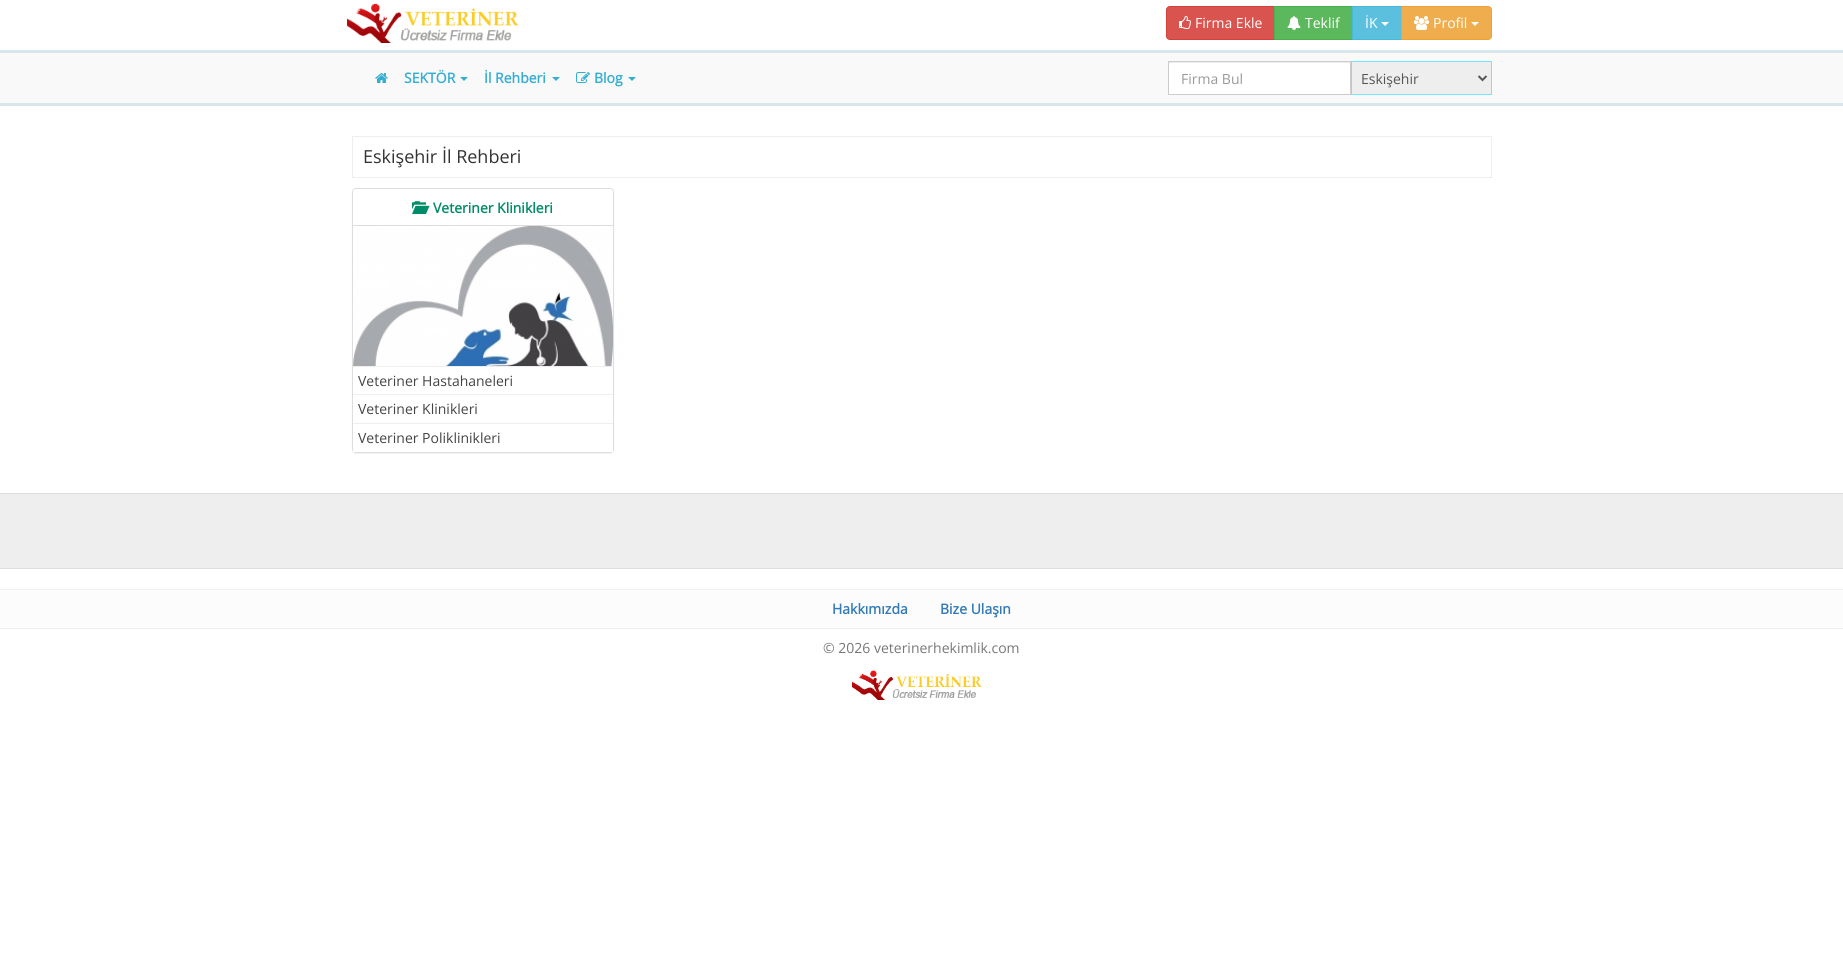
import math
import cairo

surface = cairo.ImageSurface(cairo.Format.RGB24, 1843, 974)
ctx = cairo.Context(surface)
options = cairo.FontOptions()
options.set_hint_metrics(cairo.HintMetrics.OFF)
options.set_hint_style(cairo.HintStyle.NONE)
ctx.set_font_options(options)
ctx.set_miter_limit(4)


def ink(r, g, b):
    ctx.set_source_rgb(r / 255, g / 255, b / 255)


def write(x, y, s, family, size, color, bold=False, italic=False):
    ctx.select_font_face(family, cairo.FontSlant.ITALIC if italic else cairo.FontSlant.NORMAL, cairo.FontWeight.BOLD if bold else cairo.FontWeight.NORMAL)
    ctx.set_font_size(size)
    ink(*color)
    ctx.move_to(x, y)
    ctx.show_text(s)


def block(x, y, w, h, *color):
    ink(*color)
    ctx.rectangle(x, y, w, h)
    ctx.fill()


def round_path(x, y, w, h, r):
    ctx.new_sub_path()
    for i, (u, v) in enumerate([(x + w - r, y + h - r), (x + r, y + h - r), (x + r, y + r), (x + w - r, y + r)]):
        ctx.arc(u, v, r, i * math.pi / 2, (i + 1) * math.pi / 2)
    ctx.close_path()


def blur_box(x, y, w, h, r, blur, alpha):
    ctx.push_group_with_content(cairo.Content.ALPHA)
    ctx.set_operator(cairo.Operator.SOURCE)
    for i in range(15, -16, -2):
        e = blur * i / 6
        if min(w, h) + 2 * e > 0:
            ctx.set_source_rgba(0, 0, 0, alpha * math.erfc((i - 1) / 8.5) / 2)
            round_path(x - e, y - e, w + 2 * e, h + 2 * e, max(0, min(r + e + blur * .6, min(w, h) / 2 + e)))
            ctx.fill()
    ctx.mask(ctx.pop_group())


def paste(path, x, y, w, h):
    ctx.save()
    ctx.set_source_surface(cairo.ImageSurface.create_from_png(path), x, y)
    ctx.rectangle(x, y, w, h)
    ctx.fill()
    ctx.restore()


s1 = dict(family="Open Sans", size=14, color=(255, 255, 255))
s2 = dict(family="Open Sans", size=14, color=(52, 174, 209), bold=True)
s3 = dict(family="Open Sans", size=14, color=(153, 153, 153))
s4 = dict(family="Open Sans", size=14, color=(85, 85, 85))
s5 = dict(family="Open Sans", size=18, color=(51, 51, 51))
s6 = dict(family="Open Sans", size=14, color=(0, 140, 105), bold=True)
s7 = dict(family="Open Sans", size=14, color=(68, 68, 68))
s8 = dict(family="Open Sans", size=14, color=(51, 122, 183), bold=True)
s9 = dict(family="Open Sans", size=14, color=(119, 119, 119))

ink(255, 255, 255)
ctx.paint()
paste("pic1.png", 347, 3, 172, 40)
ink(217, 83, 79)
ctx.new_path()
ctx.move_to(1170, 6.5)
ctx.line_to(1274.5, 6.5)
ctx.line_to(1274.5, 39.5)
ctx.line_to(1170, 39.5)
ctx.curve_to(1168, 39.5, 1166.5, 38, 1166.5, 36)
ctx.line_to(1166.5, 10)
ctx.curve_to(1166.5, 8, 1168, 6.5, 1170, 6.5)
ctx.close_path()
ctx.fill_preserve()
ink(212, 63, 58)
ctx.set_line_width(1)
ctx.stroke()
paste("pic2.png", 1179, 16, 12, 13)
write(1195, 28, "Firma Ekle", **s1)
ink(92, 184, 92)
ctx.rectangle(1274.5, 6.5, 78, 33)
ctx.fill_preserve()
ink(76, 174, 76)
ctx.stroke()
paste("pic3.png", 1287, 16, 14, 14)
write(1305, 28, "Teklif", **s1)
ink(91, 192, 222)
ctx.rectangle(1352.5, 6.5, 49, 33)
ctx.fill_preserve()
ink(70, 184, 218)
ctx.stroke()
write(1365, 28, "İK", **s1)
ctx.new_path()
ctx.move_to(1381, 22)
ctx.line_to(1389, 22)
ctx.line_to(1385, 26)
ctx.close_path()
ctx.fill()
ink(240, 173, 78)
ctx.new_path()
ctx.move_to(1401.5, 6.5)
ctx.line_to(1488, 6.5)
ctx.curve_to(1490, 6.5, 1491.5, 8, 1491.5, 10)
ctx.line_to(1491.5, 36)
ctx.curve_to(1491.5, 38, 1490, 39.5, 1488, 39.5)
ctx.line_to(1401.5, 39.5)
ctx.close_path()
ctx.fill_preserve()
ink(238, 162, 54)
ctx.stroke()
paste("pic4.png", 1414, 16, 15, 14)
write(1433, 28, "Profil", **s1)
ctx.new_path()
ctx.move_to(1471, 22)
ctx.line_to(1479, 22)
ctx.line_to(1475, 26)
ctx.close_path()
ctx.fill()
block(0, 53, 1843, 50, 249, 249, 249)
block(0, 50, 1843, 3, 214, 230, 235)
block(0, 103, 1843, 3, 214, 230, 235)
paste("pic5.png", 375, 73, 13, 10)
write(404, 83, "SEKTÖR", **s2)
ctx.new_path()
ctx.move_to(460, 77)
ctx.line_to(468, 77)
ctx.line_to(464, 81)
ctx.close_path()
ctx.fill()
write(484, 83, "İl Rehberi", **s2)
ctx.new_path()
ctx.move_to(552, 77)
ctx.line_to(560, 77)
ctx.line_to(556, 81)
ctx.close_path()
ctx.fill()
paste("pic6.png", 576, 72, 14, 11)
write(594, 83, "Blog", **s2)
ctx.new_path()
ctx.move_to(628, 77)
ctx.line_to(636, 77)
ctx.line_to(632, 81)
ctx.close_path()
ctx.fill()
block(1169, 63, 181, 31, 255, 255, 255)
block(1169, 62, 181, 1, 236, 236, 236)
ctx.rectangle(1168.5, 61.5, 182, 33)
ink(204, 204, 204)
ctx.stroke()
write(1181, 84, "Firma Bul", **s3)
ink(238, 238, 238)
ctx.rectangle(1351.5, 61.5, 140, 33)
ctx.fill_preserve()
ink(112, 230, 255)
ctx.stroke()
ctx.new_path()
ctx.move_to(1478.5, 76)
ctx.line_to(1482.5, 80)
ctx.line_to(1486.5, 76)
ink(85, 85, 85)
ctx.set_line_width(2)
ctx.stroke()
write(1361, 84, "Eskişehir", **s4)
ctx.rectangle(352.5, 136.5, 1139, 41)
ink(238, 238, 238)
ctx.set_line_width(1)
ctx.stroke()
write(363, 163, "Eskişehir İl Rehberi", **s5)
ink(0, 0, 0)
blur_box(352, 189, 262, 265, 4, 0.5, 0.05)
ink(255, 255, 255)
round_path(352.5, 188.5, 261, 264, 3.5)
ctx.fill_preserve()
ink(221, 221, 221)
ctx.stroke()
ink(255, 255, 255)
ctx.new_path()
ctx.move_to(356, 189)
ctx.line_to(610, 189)
ctx.curve_to(611.5, 189, 613, 190.5, 613, 192)
ctx.line_to(613, 226)
ctx.line_to(353, 226)
ctx.line_to(353, 192)
ctx.curve_to(353, 190.5, 354.5, 189, 356, 189)
ctx.close_path()
ctx.fill()
block(353, 225, 260, 1, 221, 221, 221)
paste("pic7.png", 412, 201, 18, 13)
write(433, 213, "Veteriner Klinikleri", **s6)
paste("pic8.png", 353, 226, 260, 140)
block(353, 366, 260, 1, 238, 238, 238)
write(358, 386, "Veteriner Hastahaneleri", **s7)
block(353, 394, 260, 1, 238, 238, 238)
write(358, 414, "Veteriner Klinikleri", **s7)
block(353, 449, 260, 3, 255, 255, 255)
block(353, 423, 260, 1, 238, 238, 238)
write(358, 443, "Veteriner Poliklinikleri", **s7)
block(0, 494, 1843, 74, 238, 238, 238)
block(0, 493, 1843, 1, 221, 221, 221)
block(0, 568, 1843, 1, 221, 221, 221)
block(0, 590, 1843, 38, 252, 252, 252)
block(0, 589, 1843, 1, 238, 238, 238)
block(0, 628, 1843, 1, 238, 238, 238)
write(832, 614, "Hakkımızda", **s8)
write(940, 614, "Bize Ulaşın", **s8)
write(823, 653, "© 2026 veterinerhekimlik.com", **s9)
paste("pic9.png", 852, 670, 130, 30)
surface.write_to_png("screenshot.png")
